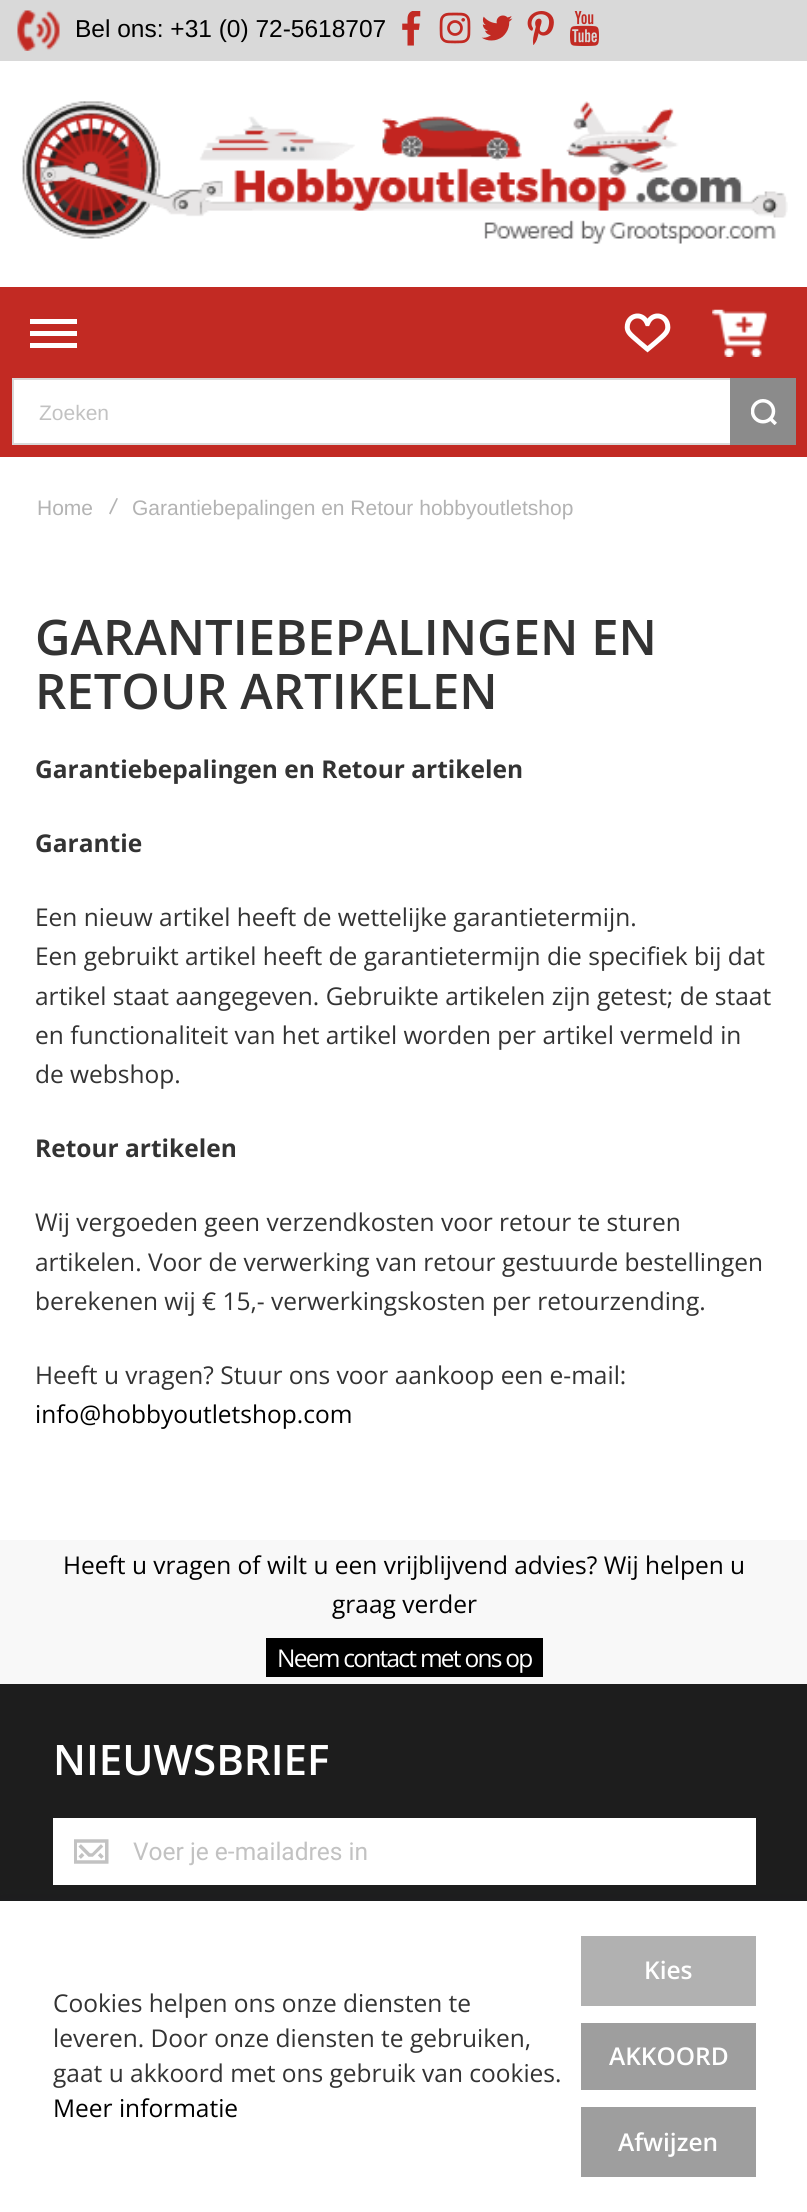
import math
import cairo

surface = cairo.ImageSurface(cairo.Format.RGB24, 807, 2212)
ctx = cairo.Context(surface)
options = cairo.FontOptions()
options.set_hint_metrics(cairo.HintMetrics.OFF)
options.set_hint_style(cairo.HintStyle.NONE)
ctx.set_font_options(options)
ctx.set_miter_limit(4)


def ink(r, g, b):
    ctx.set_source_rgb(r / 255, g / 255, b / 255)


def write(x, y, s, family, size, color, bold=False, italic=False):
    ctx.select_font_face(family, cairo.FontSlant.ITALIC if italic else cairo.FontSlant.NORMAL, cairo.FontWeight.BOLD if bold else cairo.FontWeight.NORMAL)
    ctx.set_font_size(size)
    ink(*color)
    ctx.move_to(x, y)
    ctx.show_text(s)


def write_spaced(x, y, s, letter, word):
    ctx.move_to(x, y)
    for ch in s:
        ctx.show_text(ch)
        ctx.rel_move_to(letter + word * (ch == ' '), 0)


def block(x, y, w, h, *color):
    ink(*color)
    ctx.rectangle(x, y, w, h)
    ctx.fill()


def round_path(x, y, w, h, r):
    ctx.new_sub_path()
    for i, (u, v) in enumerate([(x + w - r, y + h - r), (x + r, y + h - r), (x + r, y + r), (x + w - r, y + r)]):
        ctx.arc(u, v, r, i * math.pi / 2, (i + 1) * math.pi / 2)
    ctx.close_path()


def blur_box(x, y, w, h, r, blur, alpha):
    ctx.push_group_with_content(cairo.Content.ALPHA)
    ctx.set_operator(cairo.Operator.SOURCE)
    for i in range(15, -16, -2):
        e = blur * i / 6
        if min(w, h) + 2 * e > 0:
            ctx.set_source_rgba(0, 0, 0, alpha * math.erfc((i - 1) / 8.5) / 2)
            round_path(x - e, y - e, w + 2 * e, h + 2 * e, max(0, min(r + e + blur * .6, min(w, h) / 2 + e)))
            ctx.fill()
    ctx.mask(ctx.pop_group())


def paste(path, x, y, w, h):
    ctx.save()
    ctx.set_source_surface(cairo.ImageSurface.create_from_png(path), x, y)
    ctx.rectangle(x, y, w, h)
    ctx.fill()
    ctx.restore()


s1 = dict(family="Liberation Sans", size=24.5, color=(0, 0, 0))
s2 = dict(family="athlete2", size=35, color=(194, 42, 35))
s3 = dict(family="Liberation Sans", size=21, color=(194, 194, 194))
s4 = dict(family="Liberation Sans", size=21, color=(179, 179, 179))
s5 = dict(family="Open Sans SemiBold", size=49, color=(51, 51, 51))
s6 = dict(family="Open Sans", size=24.5, color=(51, 51, 51), bold=True)
s7 = dict(family="Open Sans", size=24.5, color=(51, 51, 51))
s8 = dict(family="Open Sans", size=24.5, color=(0, 0, 0))
s9 = dict(family="Open Sans SemiBold", size=42, color=(255, 255, 255))
s10 = dict(family="Roboto", size=24.5, color=(194, 194, 194))
s11 = dict(family="Open Sans SemiBold", size=24.5, color=(255, 255, 255))

ink(255, 255, 255)
ctx.paint()
block(0, 0, 807, 61, 217, 217, 217)
paste("pic1.png", 17, 10, 43, 41)
write(75, 37, "Bel ons: +31 (0) 72-5618707", **s1)
paste("pic2.png", 402, 11, 19, 35)
paste("pic3.png", 439, 12, 32, 32)
paste("pic4.png", 481, 15, 32, 26)
paste("pic5.png", 527, 11, 27, 34)
write(567, 46, "4", **s2)
paste("pic6.png", 22, 101, 766, 143)
block(0, 287, 807, 170, 194, 42, 35)
block(30, 319, 47, 5, 255, 255, 255)
block(30, 331, 47, 5, 255, 255, 255)
block(30, 343, 47, 5, 255, 255, 255)
paste("pic7.png", 624, 313, 47, 40)
paste("pic8.png", 712, 309, 55, 48)
block(14, 380, 716, 63, 255, 255, 255)
ctx.rectangle(13, 379, 782, 65)
ink(217, 217, 217)
ctx.stroke()
write(39, 420, "Zoeken", **s3)
block(730, 378, 66, 67, 139, 139, 139)
paste("pic9.png", 751, 399, 26, 26)
write(37, 515, "Home", **s4)
ctx.new_path()
ctx.move_to(116.5, 498)
ctx.line_to(118, 498.5)
ctx.line_to(110.5, 514.5)
ctx.line_to(109, 513.5)
ctx.close_path()
ctx.fill()
write(132, 515, "Garantiebepalingen en Retour hobbyoutletshop", **s4)
write(35, 655, "GARANTIEBEPALINGEN EN", **s5)
write(35, 709, "RETOUR ARTIKELEN", **s5)
write(35, 778, "Garantiebepalingen en Retour artikelen", **s6)
write(35, 852, "Garantie", **s6)
write(35, 926, "Een nieuw artikel heeft de wettelijke garantietermijn.", **s7)
write(35, 965, "Een gebruikt artikel heeft de garantietermijn die specifiek bij dat", **s7)
write(35, 1005, "artikel staat aangegeven. Gebruikte artikelen zijn getest; de staat", **s7)
write(35, 1044, "en functionaliteit van het artikel worden per artikel vermeld in", **s7)
write(35, 1083, "de webshop.", **s7)
write(35, 1157, "Retour artikelen", **s6)
write(35, 1231, "Wij vergoeden geen verzendkosten voor retour te sturen", **s7)
write(35, 1271, "artikelen. Voor de verwerking van retour gestuurde bestellingen", **s7)
write(35, 1310, "berekenen wij € 15,- verwerkingskosten per retourzending.", **s7)
write(35, 1384, "Heeft u vragen? Stuur ons voor aankoop een e-mail:", **s7)
write(35, 1423, "info@hobbyoutletshop.com", **s8)
block(0, 1540, 807, 144, 248, 248, 248)
write(63, 1574, "Heeft u vragen of wilt u een vrijblijvend advies? Wij helpen u", **s8)
write(332, 1613, "graag verder", **s8)
block(266, 1638, 277, 39, 0, 0, 0)
ink(255, 255, 255)
write_spaced(277, 1667, "Neem contact met ons op", -1.75, 0)
block(0, 1684, 807, 217, 29, 29, 29)
write(53, 1775, "NIEUWSBRIEF", **s9)
block(53, 1818, 703, 67, 255, 255, 255)
paste("pic10.png", 74, 1839, 35, 25)
write(133, 1860, "Voer je e-mailadres in", **s10)
ink(37, 44, 97)
blur_box(0, 1909, 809, 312, 0, 13, 0.15)
block(0, 1901, 807, 311, 255, 255, 255)
write(53, 2012, "Cookies helpen ons onze diensten te", **s7)
write(53, 2047, "leveren. Door onze diensten te gebruiken,", **s7)
write(53, 2082, "gaat u akkoord met ons gebruik van cookies.", **s7)
write(53, 2117, "Meer informatie", **s8)
block(581, 1936, 175, 70, 177, 177, 177)
write(644, 1979, "Kies", **s11)
block(581, 2023, 175, 67, 158, 158, 158)
write(609, 2065, "AKKOORD", **s11)
block(581, 2107, 175, 70, 158, 158, 158)
write(618, 2151, "Afwijzen", **s11)
surface.write_to_png("screenshot.png")
